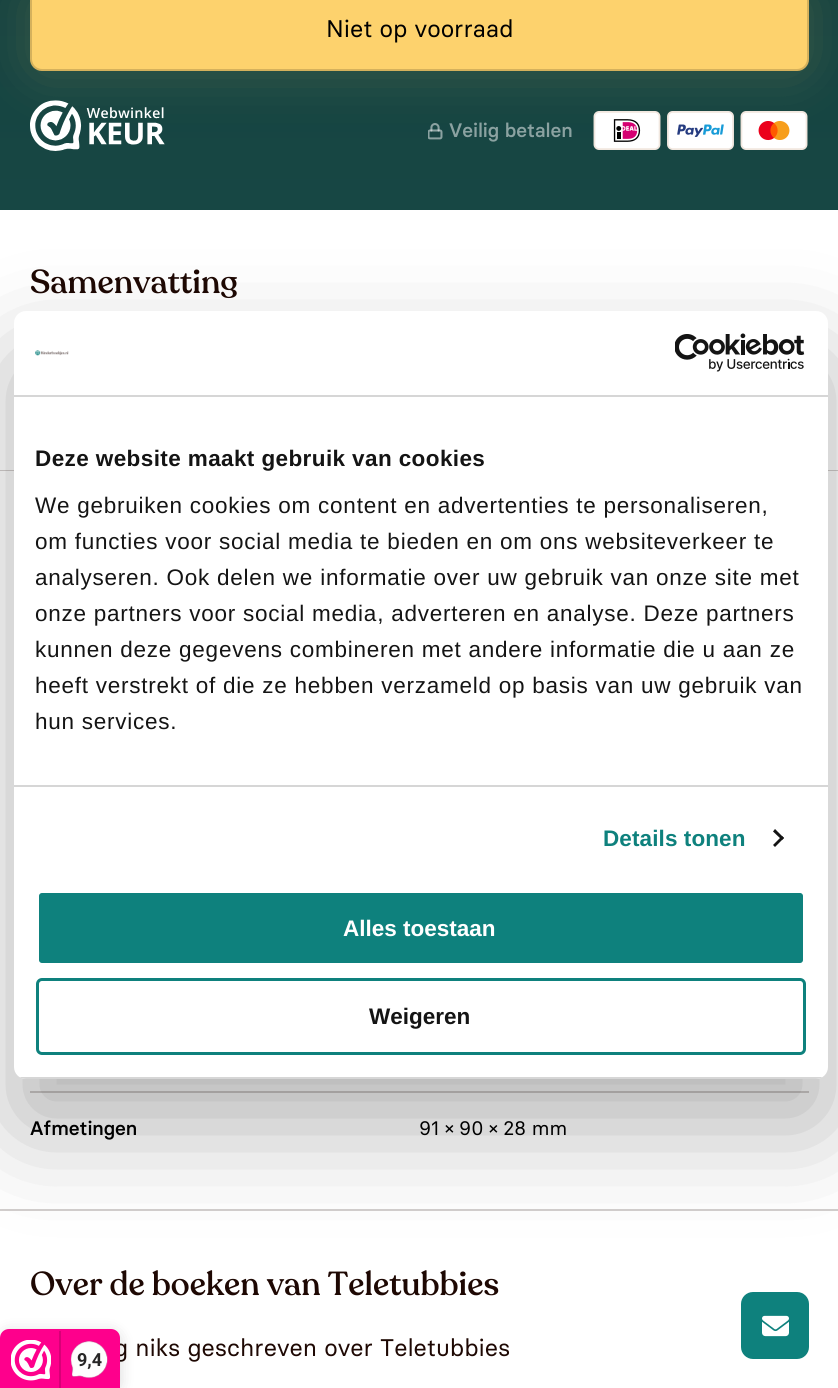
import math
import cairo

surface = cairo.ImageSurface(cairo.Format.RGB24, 838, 1388)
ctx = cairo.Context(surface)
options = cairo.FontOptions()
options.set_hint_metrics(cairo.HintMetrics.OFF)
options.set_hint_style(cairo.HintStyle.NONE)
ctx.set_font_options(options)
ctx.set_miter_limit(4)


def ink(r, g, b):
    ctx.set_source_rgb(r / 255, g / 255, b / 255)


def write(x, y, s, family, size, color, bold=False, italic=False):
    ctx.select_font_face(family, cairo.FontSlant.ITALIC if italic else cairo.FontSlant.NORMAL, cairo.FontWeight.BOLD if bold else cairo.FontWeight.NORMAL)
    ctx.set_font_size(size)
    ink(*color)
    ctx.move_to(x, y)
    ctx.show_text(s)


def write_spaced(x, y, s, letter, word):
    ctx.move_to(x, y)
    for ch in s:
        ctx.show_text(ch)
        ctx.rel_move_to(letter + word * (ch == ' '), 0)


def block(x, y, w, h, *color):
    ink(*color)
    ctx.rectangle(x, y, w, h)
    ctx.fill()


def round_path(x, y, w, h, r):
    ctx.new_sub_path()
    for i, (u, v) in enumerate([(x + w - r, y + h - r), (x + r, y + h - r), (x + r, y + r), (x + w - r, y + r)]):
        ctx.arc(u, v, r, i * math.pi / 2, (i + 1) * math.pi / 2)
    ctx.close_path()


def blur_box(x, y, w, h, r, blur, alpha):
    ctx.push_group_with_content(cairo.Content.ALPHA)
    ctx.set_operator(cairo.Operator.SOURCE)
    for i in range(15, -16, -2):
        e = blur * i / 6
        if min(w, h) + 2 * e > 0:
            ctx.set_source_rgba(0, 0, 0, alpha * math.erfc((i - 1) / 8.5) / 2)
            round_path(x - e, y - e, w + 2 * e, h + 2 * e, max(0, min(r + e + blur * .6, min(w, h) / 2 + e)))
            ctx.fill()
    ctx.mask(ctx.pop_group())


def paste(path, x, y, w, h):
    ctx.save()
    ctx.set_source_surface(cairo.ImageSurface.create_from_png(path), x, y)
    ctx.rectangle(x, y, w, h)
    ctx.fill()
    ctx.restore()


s1 = dict(family="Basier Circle", size=24, color=(0, 0, 0))
s2 = dict(family="Basier Circle Medium", size=19.5, color=(139, 162, 161))
s3 = dict(family="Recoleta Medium", size=33, color=(30, 8, 3))
s4 = dict(family="Basier Circle Medium", size=19.5, color=(0, 0, 0))
s5 = dict(family="Basier Circle", size=19.5, color=(0, 0, 0))
s6 = dict(family="Basier Circle", size=24, color=(30, 8, 3))
s7 = dict(family="Liberation Sans", size=22.5, color=(255, 255, 255), bold=True)
s8 = dict(family="Liberation Sans", size=22.5, color=(20, 20, 20), bold=True)
s9 = dict(family="Roboto", size=18, color=(39, 38, 38), bold=True)

ink(255, 255, 255)
ctx.paint()
gradient = cairo.LinearGradient(419, -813, 419, 210)
gradient.add_color_stop_rgba(0, 0.067, 0.2, 0.192, 1)
gradient.add_color_stop_rgba(1, 0.09, 0.278, 0.267, 1)
ctx.set_source(gradient)
ctx.rectangle(0, 0, 838, 210)
ctx.fill()
ink(253, 210, 109)
blur_box(29, -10, 781, 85, 14, 26, 0.15)
ink(253, 210, 109)
round_path(30, -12, 779, 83, 12)
ctx.fill()
round_path(31, -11, 777, 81, 11)
ctx.set_source_rgba(0, 0, 0, 0.16)
ctx.stroke()
write(326, 37, "Niet op voorraad", **s1)
paste("pic1.png", 30, 100, 135, 51)
paste("pic2.png", 428, 123, 15, 17)
write(449, 137, "Veilig betalen", **s2)
paste("pic3.png", 593, 111, 68, 39)
paste("pic4.png", 667, 111, 67, 39)
paste("pic5.png", 740, 111, 68, 39)
block(0, 470, 838, 1, 210, 206, 205)
write(30, 293, "Samenvatting", **s3)
block(0, 1209, 838, 2, 210, 206, 205)
block(30, 1091, 779, 2, 210, 206, 205)
write(30, 1135, "Afmetingen", **s4)
write(419, 1135, "91 × 90 × 28 mm", **s5)
write(30, 1295, "Over de boeken van Teletubbies", **s3)
write(114, 1356, "g niks geschreven over Teletubbies", **s6)
ink(0, 0, 0)
blur_box(14, 359, 814, 768, 12, 51, 0.3)
ink(255, 255, 255)
round_path(14, 311, 814, 768, 12)
ctx.fill()
block(14, 395, 814, 2, 214, 214, 214)
paste("pic6.png", 35, 350, 34, 6)
paste("pic7.png", 675, 333, 130, 39)
block(14, 785, 814, 2, 214, 214, 214)
ctx.select_font_face("Liberation Sans", cairo.FontSlant.NORMAL, cairo.FontWeight.BOLD)
ctx.set_font_size(22.5)
ink(20, 20, 20)
write_spaced(35, 466, "Deze website maakt gebruik van cookies", 0.4, 0)
ctx.select_font_face("Liberation Sans")
write_spaced(35, 513, "We gebruiken cookies om content en advertenties te personaliseren,", 0.75, 0)
write_spaced(35, 549, "om functies voor social media te bieden en om ons websiteverkeer te", 0.75, 0)
write_spaced(35, 585, "analyseren. Ook delen we informatie over uw gebruik van onze site met", 0.75, 0)
write_spaced(35, 621, "onze partners voor social media, adverteren en analyse. Deze partners", 0.75, 0)
write_spaced(35, 657, "kunnen deze gegevens combineren met andere informatie die u aan ze", 0.75, 0)
write_spaced(35, 693, "heeft verstrekt of die ze hebben verzameld op basis van uw gebruik van", 0.75, 0)
write_spaced(35, 729, "hun services.", 0.75, 0)
ctx.select_font_face("Liberation Sans", cairo.FontSlant.NORMAL, cairo.FontWeight.BOLD)
ink(14, 129, 125)
write_spaced(603, 846, "Details tonen", 0.1, 0)
ink(20, 20, 20)
ctx.new_path()
ctx.move_to(775, 829)
ctx.line_to(784, 838)
ctx.line_to(782, 840)
ctx.line_to(773, 831.5)
ctx.close_path()
ctx.fill()
ctx.new_path()
ctx.move_to(782, 836)
ctx.line_to(784, 838)
ctx.line_to(775, 847)
ctx.line_to(773, 845)
ctx.close_path()
ctx.fill()
ctx.save()
round_path(14, 311, 814, 768, 12)
ctx.clip()
block(14, 1077, 814, 2, 214, 214, 214)
ctx.restore()
ink(14, 129, 125)
round_path(37.5, 891.5, 767, 73, 4.5)
ctx.fill_preserve()
ink(255, 255, 255)
ctx.set_line_width(3)
ctx.stroke()
write(343, 936, "Alles toestaan", **s7)
round_path(37.5, 979.5, 767, 74, 4.5)
ink(14, 129, 125)
ctx.stroke()
write(369, 1024, "Weigeren", **s8)
ink(14, 129, 125)
round_path(742, 1293, 66, 65, 11)
ctx.fill_preserve()
ctx.set_line_width(2)
ctx.stroke()
paste("pic8.png", 762, 1315, 27, 22)
ink(0, 0, 0)
blur_box(0, 1332, 120, 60, 9, 7.5, 0.15)
ink(254, 0, 140)
ctx.new_path()
ctx.move_to(9, 1329)
ctx.line_to(111, 1329)
ctx.curve_to(116, 1329, 120, 1333, 120, 1338)
ctx.line_to(120, 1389)
ctx.line_to(0, 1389)
ctx.line_to(0, 1338)
ctx.curve_to(0, 1333, 4, 1329, 9, 1329)
ctx.close_path()
ctx.fill()
paste("pic9.png", 11, 1340, 40, 41)
block(59, 1331, 2, 57, 216, 0, 119)
paste("pic10.png", 70, 1341, 38, 38)
write(77, 1366, "9,4", **s9)
surface.write_to_png("screenshot.png")
